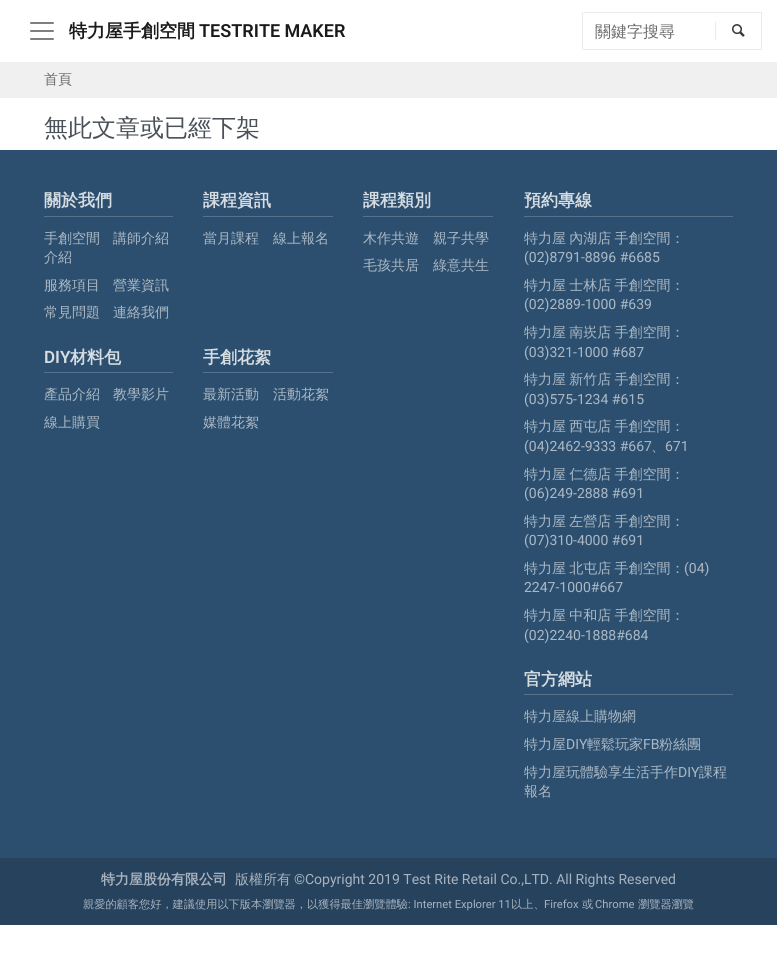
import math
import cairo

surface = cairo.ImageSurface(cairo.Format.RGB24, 777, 956)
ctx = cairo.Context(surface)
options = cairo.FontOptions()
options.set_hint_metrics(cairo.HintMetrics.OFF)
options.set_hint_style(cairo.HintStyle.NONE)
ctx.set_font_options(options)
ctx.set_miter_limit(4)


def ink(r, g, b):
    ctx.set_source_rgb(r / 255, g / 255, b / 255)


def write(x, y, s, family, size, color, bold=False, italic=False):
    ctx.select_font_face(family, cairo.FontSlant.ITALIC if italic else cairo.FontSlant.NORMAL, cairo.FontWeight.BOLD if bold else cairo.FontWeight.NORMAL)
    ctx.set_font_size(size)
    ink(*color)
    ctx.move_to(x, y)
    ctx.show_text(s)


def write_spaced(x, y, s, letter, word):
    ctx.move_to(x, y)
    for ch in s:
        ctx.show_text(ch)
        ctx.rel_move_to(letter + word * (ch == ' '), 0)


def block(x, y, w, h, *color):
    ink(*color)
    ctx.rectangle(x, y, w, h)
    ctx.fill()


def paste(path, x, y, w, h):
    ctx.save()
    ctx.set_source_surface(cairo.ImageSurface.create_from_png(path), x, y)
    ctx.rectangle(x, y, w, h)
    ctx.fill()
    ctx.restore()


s1 = dict(family="WenQuanYi Zen Hei", size=18, color=(26, 26, 26), bold=True)
s2 = dict(family="Roboto SemiBold", size=18, color=(26, 26, 26))
s3 = dict(family="WenQuanYi Zen Hei Medium", size=16, color=(107, 107, 107))
s4 = dict(family="WenQuanYi Zen Hei Medium", size=14, color=(107, 107, 107))
s5 = dict(family="WenQuanYi Zen Hei Medium", size=24, color=(73, 80, 87))
s6 = dict(family="WenQuanYi Zen Hei", size=17, color=(213, 220, 226), bold=True)
s7 = dict(family="WenQuanYi Zen Hei Medium", size=14, color=(171, 185, 197))
s8 = dict(family="Roboto SemiBold", size=17, color=(213, 220, 226))
s9 = dict(family="Roboto", size=14, color=(171, 185, 197))
s10 = dict(family="WenQuanYi Zen Hei", size=14, color=(168, 179, 190), bold=True)
s11 = dict(family="WenQuanYi Zen Hei Medium", size=14, color=(168, 179, 190))
s12 = dict(family="Roboto", size=14, color=(168, 179, 190))
s13 = dict(family="WenQuanYi Zen Hei Medium", size=11.2, color=(168, 179, 190))
s14 = dict(family="Roboto", size=11.2, color=(168, 179, 190))

ink(255, 255, 255)
ctx.paint()
paste("pic1.png", 30, 22, 24, 18)
write(69, 37, "特力屋手創空間", **s1)
write(199, 37, "TESTRITE MAKER", **s2)
ctx.new_path()
ctx.move_to(584, 12.5)
ctx.line_to(761.5, 12.5)
ctx.line_to(761.5, 49.5)
ctx.line_to(584, 49.5)
ctx.curve_to(583, 49.5, 582.5, 49, 582.5, 48)
ctx.line_to(582.5, 14)
ctx.curve_to(582.5, 13, 583, 12.5, 584, 12.5)
ctx.close_path()
ink(233, 236, 239)
ctx.set_line_width(1)
ctx.stroke()
write(595, 37, "關鍵字搜尋", **s3)
block(715, 22, 1, 18, 233, 236, 239)
paste("pic2.png", 732, 24, 13, 13)
block(0, 62, 777, 36, 241, 240, 240)
write(44, 84, "首頁", **s4)
write(44, 136, "無此文章或已經下架", **s5)
block(0, 150, 777, 708, 45, 79, 111)
block(44, 216, 129, 1, 87, 114, 140)
write(44, 206, "關於我們", **s6)
write(44, 243, "手創空間", **s7)
write(44, 262, "介紹", **s7)
write(113, 243, "講師介紹", **s7)
write(44, 290, "服務項目", **s7)
write(113, 290, "營業資訊", **s7)
write(44, 317, "常見問題", **s7)
write(113, 317, "連絡我們", **s7)
block(203, 216, 130, 1, 87, 114, 140)
write(203, 206, "課程資訊", **s6)
write(203, 243, "當月課程", **s7)
write(273, 243, "線上報名", **s7)
block(363, 216, 130, 1, 87, 114, 140)
write(363, 206, "課程類別", **s6)
write(363, 243, "木作共遊", **s7)
write(433, 243, "親子共學", **s7)
write(363, 270, "毛孩共居", **s7)
write(433, 270, "綠意共生", **s7)
block(44, 372, 129, 1, 87, 114, 140)
write(44, 363, "DIY", **s8)
write(70, 363, "材料包", **s6)
write(44, 399, "產品介紹", **s7)
write(113, 399, "教學影片", **s7)
write(44, 427, "線上購買", **s7)
block(203, 372, 130, 1, 87, 114, 140)
write(203, 363, "手創花絮", **s6)
write(203, 399, "最新活動", **s7)
write(273, 399, "活動花絮", **s7)
write(203, 427, "媒體花絮", **s7)
block(524, 216, 209, 1, 87, 114, 140)
write(524, 206, "預約專線", **s6)
ctx.select_font_face("WenQuanYi Zen Hei Medium")
ctx.set_font_size(14)
ink(171, 185, 197)
write_spaced(524, 243, "特力屋 內湖店 手創空間：", 0, -1)
write(524, 262, "(02)8791-8896 #6685", **s9)
ctx.select_font_face("WenQuanYi Zen Hei Medium")
write_spaced(524, 290, "特力屋 士林店 手創空間：", 0, -1)
write(524, 309, "(02)2889-1000 #639", **s9)
ctx.select_font_face("WenQuanYi Zen Hei Medium")
write_spaced(524, 337, "特力屋 南崁店 手創空間：", 0, -1)
write(524, 357, "(03)321-1000 #687", **s9)
ctx.select_font_face("WenQuanYi Zen Hei Medium")
write_spaced(524, 384, "特力屋 新竹店 手創空間：", 0, -1)
write(524, 404, "(03)575-1234 #615", **s9)
ctx.select_font_face("WenQuanYi Zen Hei Medium")
write_spaced(524, 431, "特力屋 西屯店 手創空間：", 0, -1)
write(524, 451, "(04)2462-9333 #667", **s9)
write(651, 451, "、", **s7)
write(665, 451, "671", **s9)
ctx.select_font_face("WenQuanYi Zen Hei Medium")
write_spaced(524, 479, "特力屋 仁德店 手創空間：", 0, -1)
write(524, 498, "(06)249-2888 #691", **s9)
ctx.select_font_face("WenQuanYi Zen Hei Medium")
write_spaced(524, 526, "特力屋 左營店 手創空間：", 0, -1)
write(524, 545, "(07)310-4000 #691", **s9)
ctx.select_font_face("WenQuanYi Zen Hei Medium")
write_spaced(524, 573, "特力屋 北屯店 手創空間：", 0, -1)
write(684, 573, "(04)", **s9)
write(524, 592, "2247-1000#667", **s9)
ctx.select_font_face("WenQuanYi Zen Hei Medium")
write_spaced(524, 620, "特力屋 中和店 手創空間：", 0, -1)
write(524, 640, "(02)2240-1888#684", **s9)
block(524, 694, 209, 1, 87, 114, 140)
write(524, 685, "官方網站", **s6)
write(524, 721, "特力屋線上購物網", **s7)
write(524, 749, "特力屋", **s7)
write(566, 749, "DIY", **s9)
write(587, 749, "輕鬆玩家", **s7)
write(643, 749, "FB", **s9)
write(659, 749, "粉絲團", **s7)
write(524, 777, "特力屋玩體驗享生活手作", **s7)
write(678, 777, "DIY", **s9)
write(699, 777, "課程", **s7)
write(524, 796, "報名", **s7)
block(0, 858, 777, 67, 38, 66, 93)
write(101, 884, "特力屋股份有限公司", **s10)
write(235, 884, "版權所有", **s11)
write(294, 884, "©Copyright 2019 Test Rite Retail Co.,LTD. All Rights Reserved", **s12)
write(83, 908, "親愛的顧客您好，建議使用以下版本瀏覽器，以獲得最佳瀏覽體驗", **s13)
write(408, 908, ": Internet Explorer 11", **s14)
write(511, 908, "以上、", **s13)
write(544, 908, "Firefox", **s14)
write(582, 908, "或", **s13)
write(595, 908, "Chrome", **s14)
write(638, 908, "瀏覽器瀏覽", **s13)
surface.write_to_png("screenshot.png")
